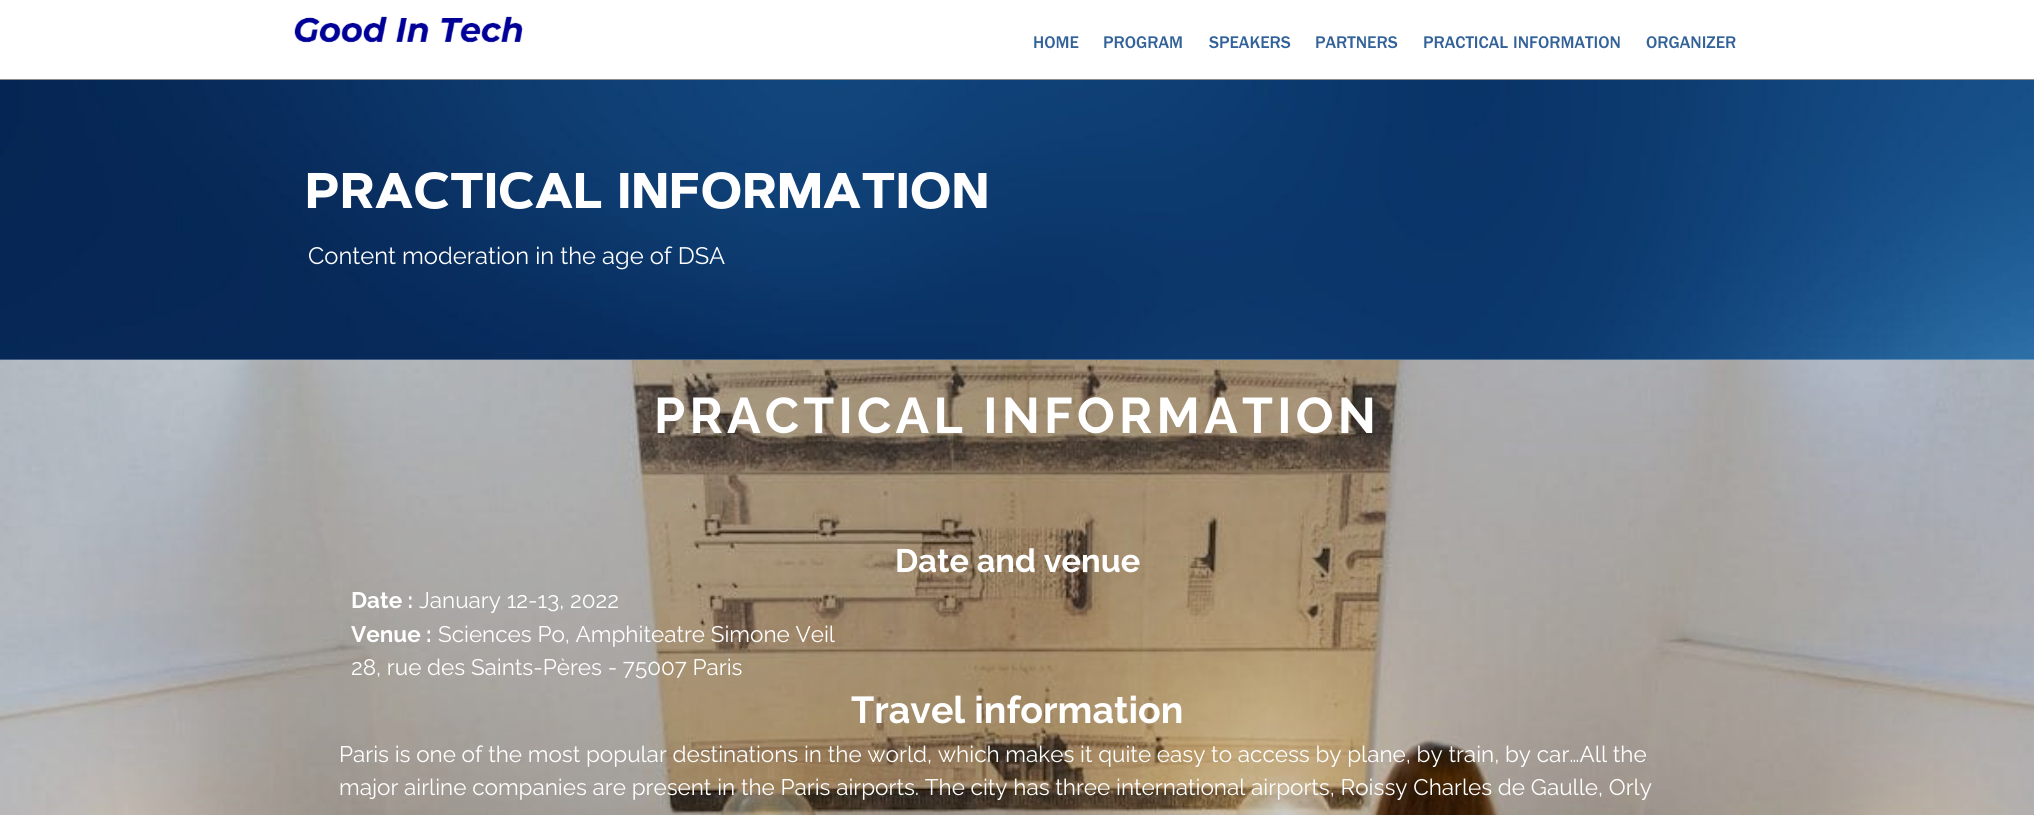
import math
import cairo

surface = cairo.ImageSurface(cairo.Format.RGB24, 2034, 815)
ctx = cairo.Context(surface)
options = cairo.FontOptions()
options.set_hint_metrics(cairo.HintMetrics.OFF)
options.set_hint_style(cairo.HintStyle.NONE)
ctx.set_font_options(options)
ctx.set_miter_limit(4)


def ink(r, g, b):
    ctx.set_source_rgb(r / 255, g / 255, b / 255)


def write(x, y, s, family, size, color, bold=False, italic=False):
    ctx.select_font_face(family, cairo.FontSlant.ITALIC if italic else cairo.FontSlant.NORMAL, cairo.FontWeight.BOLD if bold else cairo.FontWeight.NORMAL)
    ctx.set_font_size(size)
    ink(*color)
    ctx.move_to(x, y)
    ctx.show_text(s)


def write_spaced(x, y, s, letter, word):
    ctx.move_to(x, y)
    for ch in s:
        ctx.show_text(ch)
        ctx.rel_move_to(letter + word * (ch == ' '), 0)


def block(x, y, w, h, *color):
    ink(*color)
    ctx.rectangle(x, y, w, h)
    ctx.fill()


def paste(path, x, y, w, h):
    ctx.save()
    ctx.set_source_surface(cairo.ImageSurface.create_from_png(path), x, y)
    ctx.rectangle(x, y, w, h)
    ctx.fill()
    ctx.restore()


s1 = dict(family="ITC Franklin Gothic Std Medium", size=17.5, color=(50, 98, 153))
s2 = dict(family="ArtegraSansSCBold", size=50, color=(255, 255, 255), bold=True)
s3 = dict(family="Raleway Thin", size=23.75, color=(255, 255, 255))
s4 = dict(family="Raleway", size=32.5, color=(255, 255, 255), bold=True)
s5 = dict(family="Raleway", size=22.5, color=(255, 255, 255), bold=True)
s6 = dict(family="Raleway Thin", size=22.5, color=(255, 255, 255))
s7 = dict(family="Raleway", size=37.5, color=(255, 255, 255), bold=True)

ink(255, 255, 255)
ctx.paint()
block(0, 79, 2034, 1, 140, 140, 140)
paste("pic1.png", 294, 16, 229, 27)
write(1033, 48, "HOME", **s1)
write(1103, 48, "PROGRAM", **s1)
write(1209, 48, "SPEAKERS", **s1)
write(1315, 48, "PARTNERS", **s1)
write(1423, 48, "PRACTICAL INFORMATION", **s1)
write(1646, 48, "ORGANIZER", **s1)
paste("pic2.png", 0, 80, 2034, 280)
write(305, 208, "PRACTICAL INFORMATION", **s2)
write(308, 264, "Content moderation in the age of DSA", **s3)
paste("pic3.png", 0, 360, 2034, 455)
ctx.select_font_face("Raleway", cairo.FontSlant.NORMAL, cairo.FontWeight.BOLD)
ctx.set_font_size(50)
write_spaced(654, 433, "PRACTICAL INFORMATION", 4.25, 0)
write(895, 572, "Date and venue", **s4)
write(351, 608, "Date :", **s5)
write(419, 608, "January 12-13, 2022", **s6)
write(351, 642, "Venue :", **s5)
write(438, 642, "Sciences Po, Amphiteatre Simone Veil", **s6)
write(351, 675, "28, rue des Saints-Pères - 75007 Paris", **s6)
write(851, 723, "Travel information", **s7)
write(339, 762, "Paris is one of the most popular destinations in the world, which makes it quite easy to access by plane, by train, by car…All the", **s6)
write(339, 795, "major airline companies are present in the Paris airports. The city has three international airports, Roissy Charles de Gaulle, Orly", **s6)
surface.write_to_png("screenshot.png")
